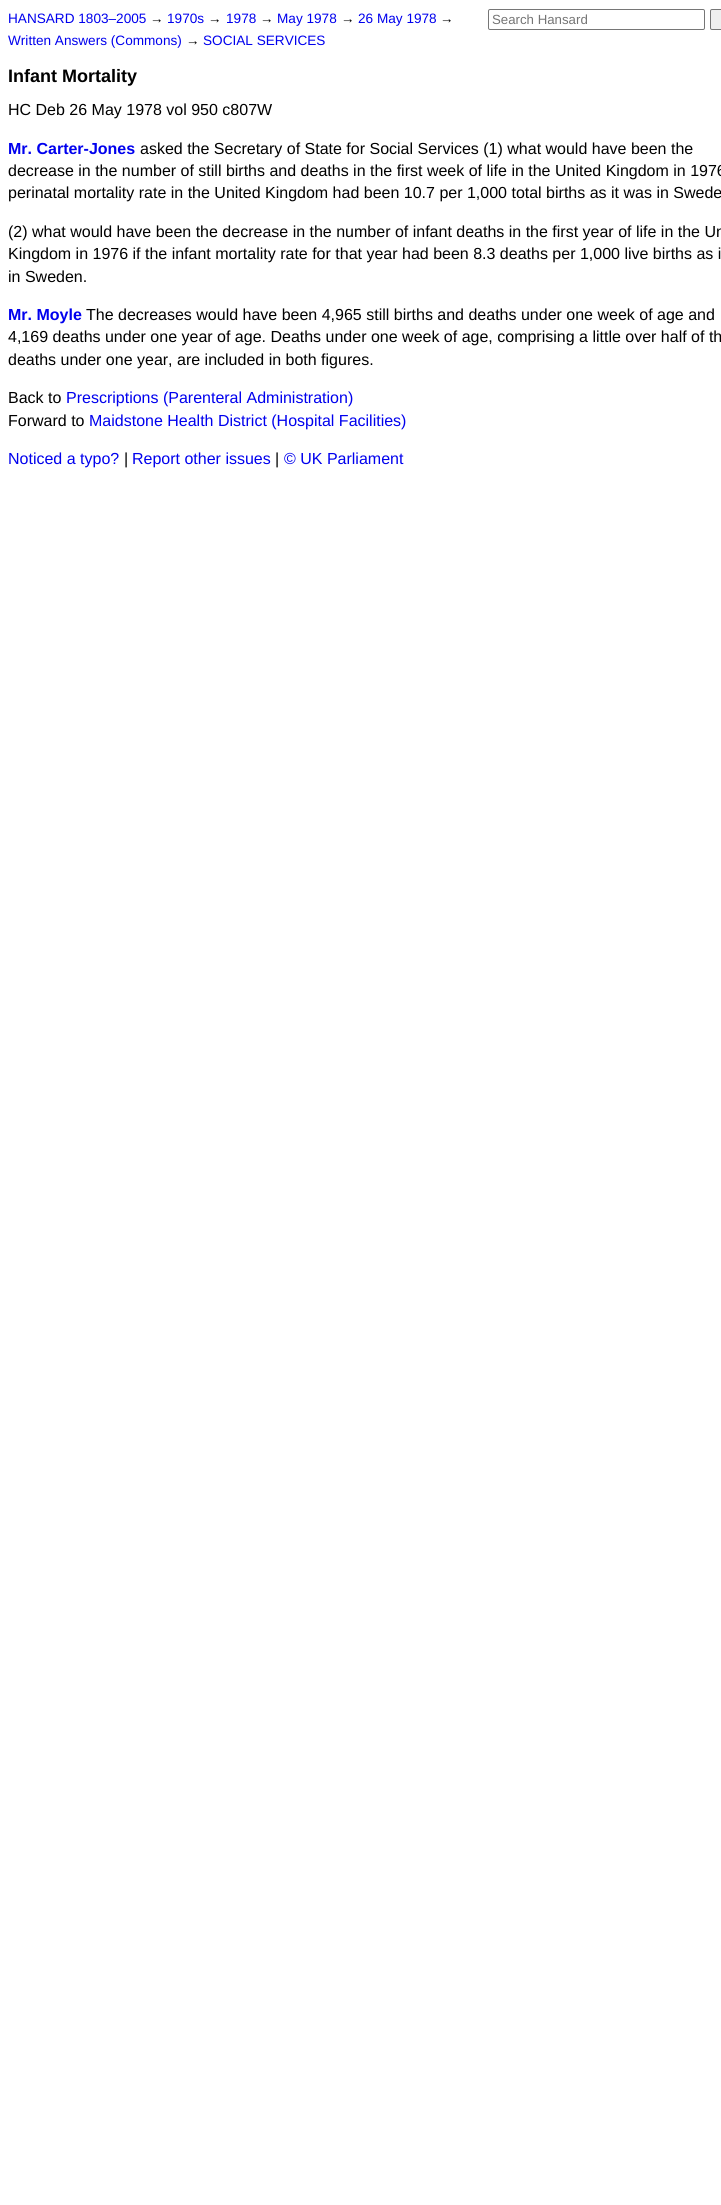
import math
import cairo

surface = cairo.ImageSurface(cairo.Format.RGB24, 721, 2205)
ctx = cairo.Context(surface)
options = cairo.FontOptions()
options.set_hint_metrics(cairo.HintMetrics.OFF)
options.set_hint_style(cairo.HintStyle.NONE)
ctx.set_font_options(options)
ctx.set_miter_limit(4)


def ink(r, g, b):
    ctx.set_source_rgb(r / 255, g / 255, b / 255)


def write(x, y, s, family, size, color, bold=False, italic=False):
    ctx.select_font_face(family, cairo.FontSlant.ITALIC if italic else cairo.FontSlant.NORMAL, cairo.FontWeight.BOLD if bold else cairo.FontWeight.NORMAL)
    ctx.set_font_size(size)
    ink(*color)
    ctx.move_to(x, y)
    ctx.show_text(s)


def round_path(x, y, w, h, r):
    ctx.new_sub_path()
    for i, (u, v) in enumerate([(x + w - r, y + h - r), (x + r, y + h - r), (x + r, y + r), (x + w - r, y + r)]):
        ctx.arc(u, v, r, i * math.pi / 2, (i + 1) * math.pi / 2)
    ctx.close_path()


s1 = dict(family="Liberation Sans", size=13.6, color=(0, 0, 238))
s2 = dict(family="Liberation Sans", size=13.6, color=(0, 0, 0))
s3 = dict(family="Liberation Sans", size=13.25, color=(117, 117, 117))
s4 = dict(family="Liberation Sans", size=18, color=(0, 0, 0), bold=True)
s5 = dict(family="Liberation Sans", size=16, color=(0, 0, 0))
s6 = dict(family="Liberation Sans", size=16, color=(0, 0, 238), bold=True)
s7 = dict(family="Liberation Sans", size=16, color=(0, 0, 238))

ink(255, 255, 255)
ctx.paint()
write(8, 23, "HANSARD 1803–2005", **s1)
write(150, 23, "→", **s2)
write(167, 23, "1970s", **s1)
write(208, 23, "→", **s2)
write(226, 23, "1978", **s1)
write(260, 23, "→", **s2)
write(277, 23, "May 1978", **s1)
write(341, 23, "→", **s2)
write(358, 23, "26 May 1978", **s1)
write(440, 23, "→", **s2)
write(8, 45, "Written Answers (Commons)", **s1)
write(186, 45, "→", **s2)
write(203, 45, "SOCIAL SERVICES", **s1)
round_path(488.5, 9.5, 216, 20, 1.5)
ink(118, 118, 118)
ctx.set_line_width(1)
ctx.stroke()
write(492, 24, "Search Hansard", **s3)
ink(239, 239, 239)
round_path(710.5, 9.5, 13, 20, 1.5)
ctx.fill_preserve()
ink(118, 118, 118)
ctx.stroke()
write(8, 82, "Infant Mortality", **s4)
write(8, 115, "HC Deb 26 May 1978 vol 950 c807W", **s5)
write(8, 154, "Mr. Carter-Jones", **s6)
write(140, 154, "asked the Secretary of State for Social Services (1) what would have been the", **s5)
write(8, 176, "decrease in the number of still births and deaths in the first week of life in the United Kingdom in 1976", **s5)
write(8, 198, "perinatal mortality rate in the United Kingdom had been 10.7 per 1,000 total births as it was in Swede", **s5)
write(8, 237, "(2) what would have been the decrease in the number of infant deaths in the first year of life in the Un", **s5)
write(8, 259, "Kingdom in 1976 if the infant mortality rate for that year had been 8.3 deaths per 1,000 live births as i", **s5)
write(8, 282, "in Sweden.", **s5)
write(8, 320, "Mr. Moyle", **s6)
write(86, 320, "The decreases would have been 4,965 still births and deaths under one week of age and", **s5)
write(8, 342, "4,169 deaths under one year of age. Deaths under one week of age, comprising a little over half of th", **s5)
write(8, 365, "deaths under one year, are included in both figures.", **s5)
write(8, 403, "Back to", **s5)
write(66, 403, "Prescriptions (Parenteral Administration)", **s7)
write(8, 426, "Forward to", **s5)
write(89, 426, "Maidstone Health District (Hospital Facilities)", **s7)
write(8, 464, "Noticed a typo?", **s7)
write(124, 464, "|", **s5)
write(132, 464, "Report other issues", **s7)
write(275, 464, "|", **s5)
write(284, 464, "© UK Parliament", **s7)
surface.write_to_png("screenshot.png")
